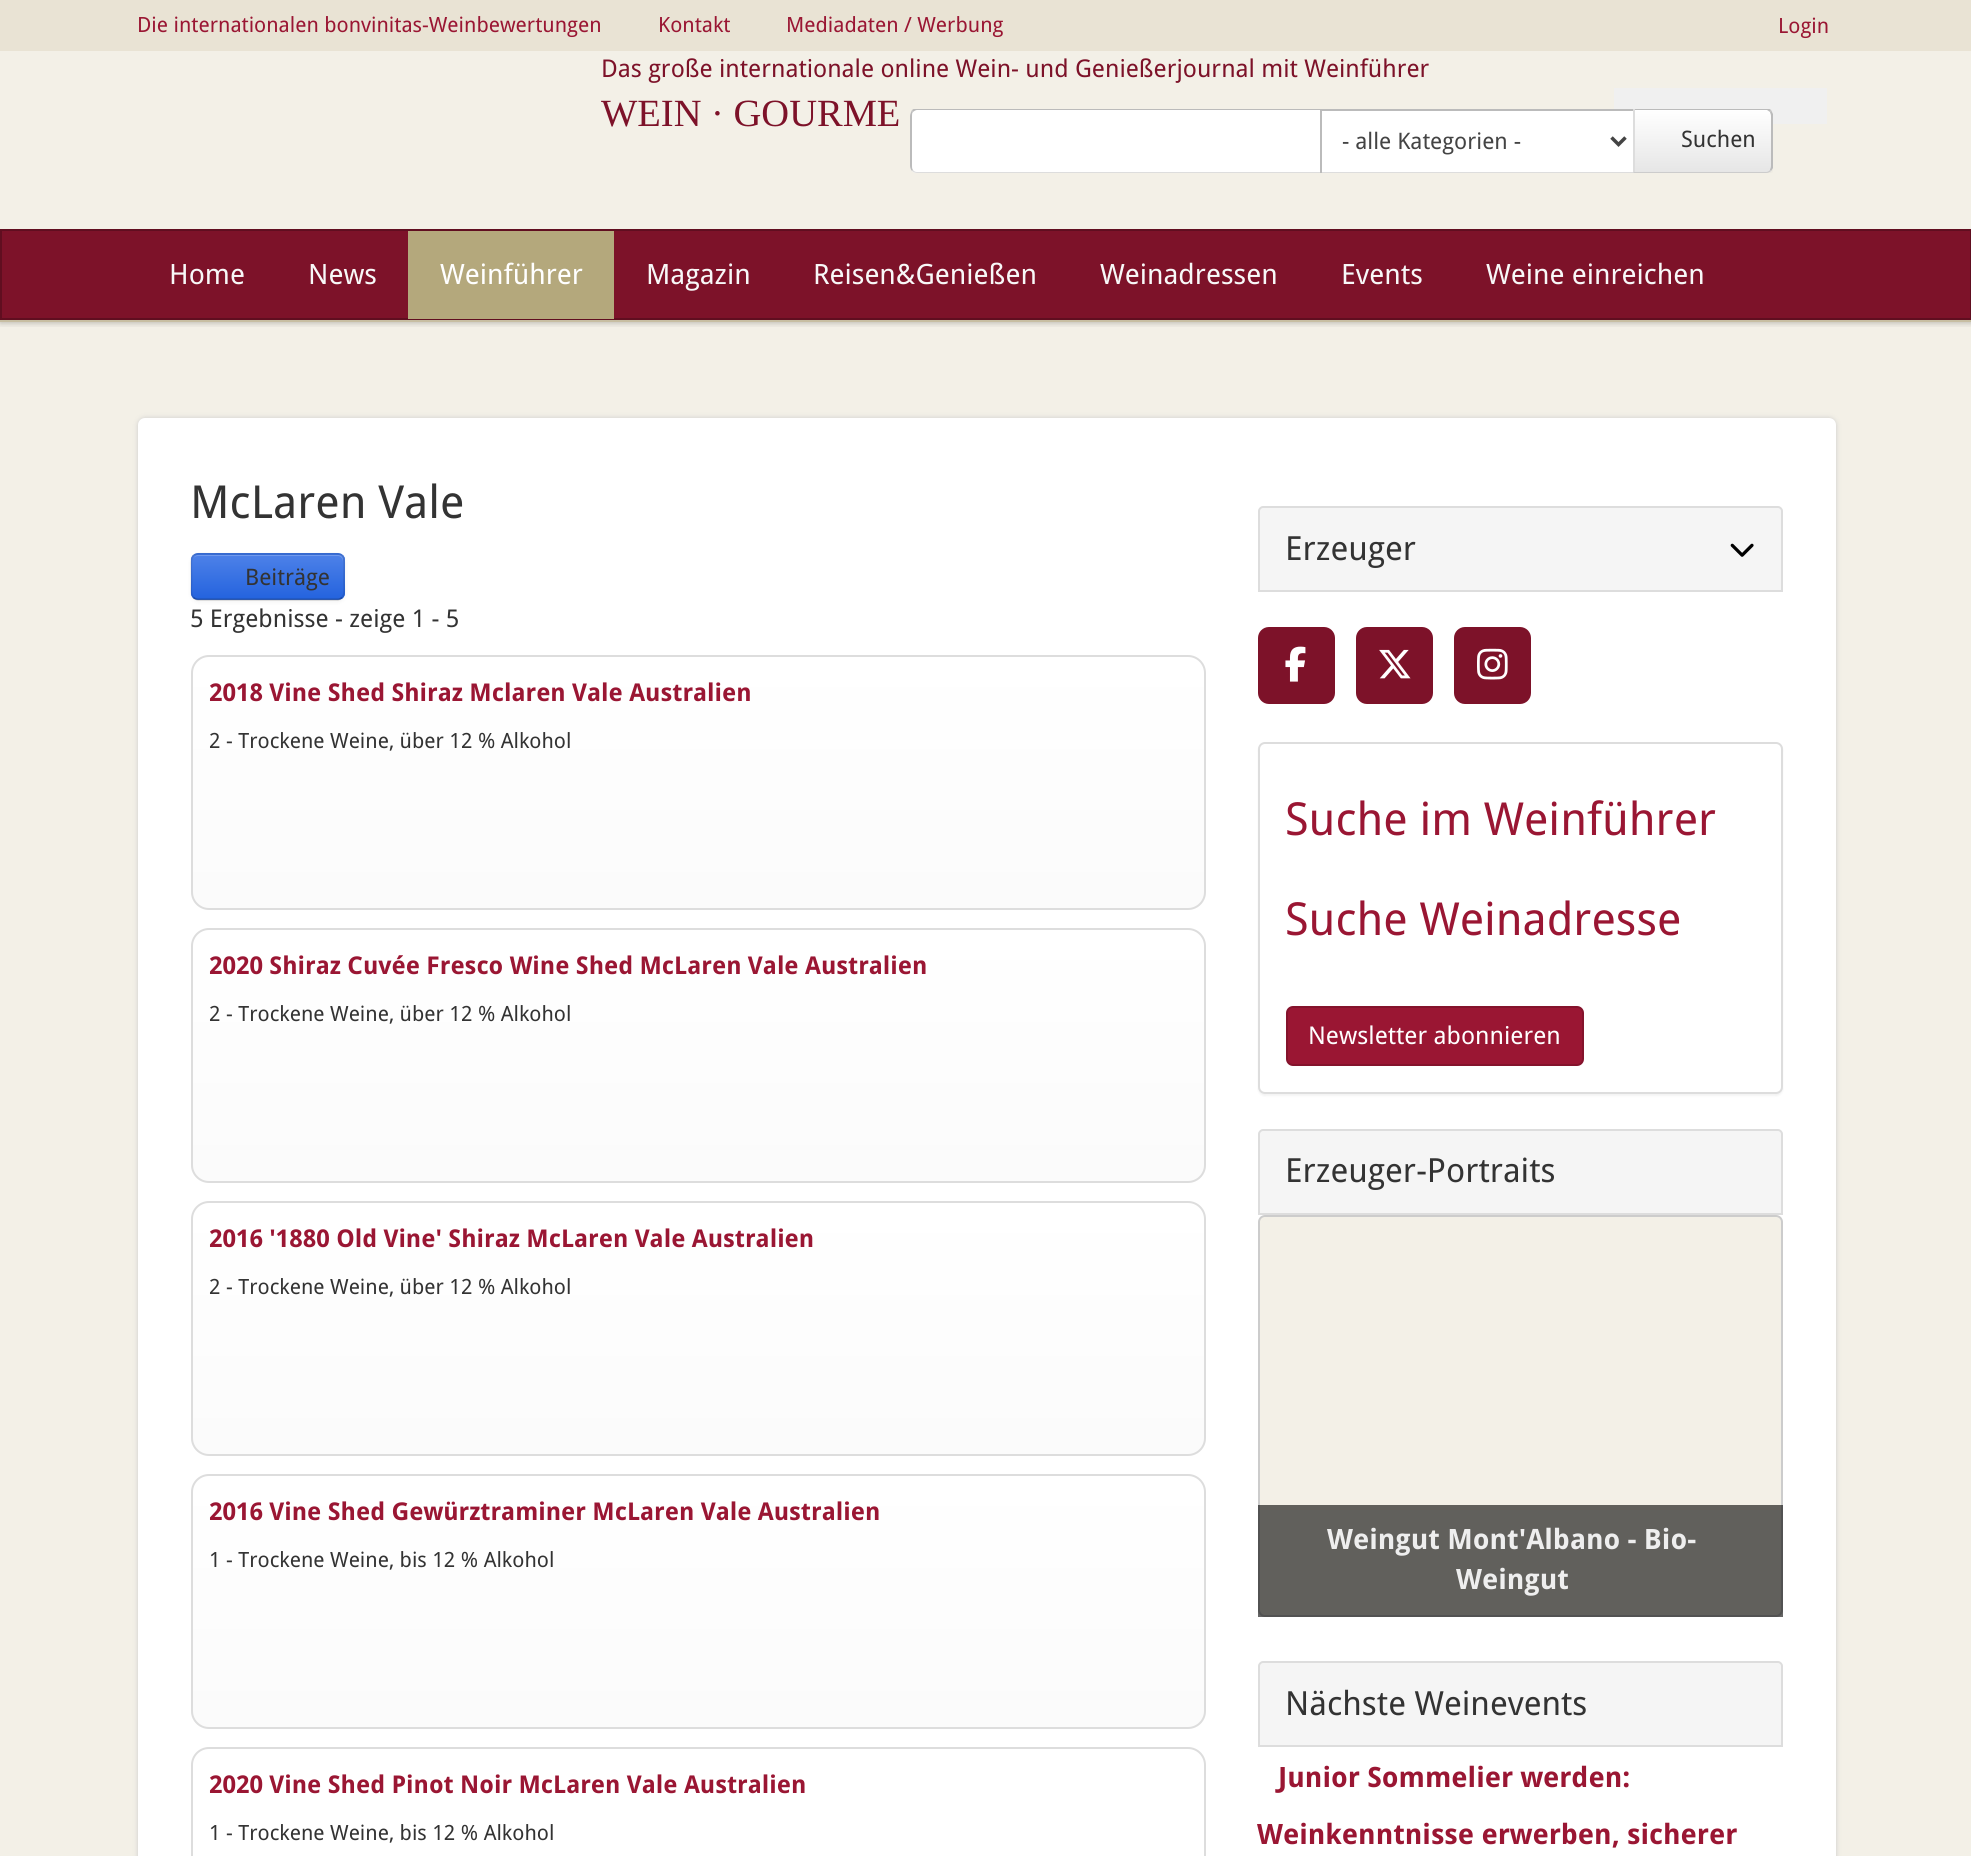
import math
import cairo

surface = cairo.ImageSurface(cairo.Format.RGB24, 1971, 1856)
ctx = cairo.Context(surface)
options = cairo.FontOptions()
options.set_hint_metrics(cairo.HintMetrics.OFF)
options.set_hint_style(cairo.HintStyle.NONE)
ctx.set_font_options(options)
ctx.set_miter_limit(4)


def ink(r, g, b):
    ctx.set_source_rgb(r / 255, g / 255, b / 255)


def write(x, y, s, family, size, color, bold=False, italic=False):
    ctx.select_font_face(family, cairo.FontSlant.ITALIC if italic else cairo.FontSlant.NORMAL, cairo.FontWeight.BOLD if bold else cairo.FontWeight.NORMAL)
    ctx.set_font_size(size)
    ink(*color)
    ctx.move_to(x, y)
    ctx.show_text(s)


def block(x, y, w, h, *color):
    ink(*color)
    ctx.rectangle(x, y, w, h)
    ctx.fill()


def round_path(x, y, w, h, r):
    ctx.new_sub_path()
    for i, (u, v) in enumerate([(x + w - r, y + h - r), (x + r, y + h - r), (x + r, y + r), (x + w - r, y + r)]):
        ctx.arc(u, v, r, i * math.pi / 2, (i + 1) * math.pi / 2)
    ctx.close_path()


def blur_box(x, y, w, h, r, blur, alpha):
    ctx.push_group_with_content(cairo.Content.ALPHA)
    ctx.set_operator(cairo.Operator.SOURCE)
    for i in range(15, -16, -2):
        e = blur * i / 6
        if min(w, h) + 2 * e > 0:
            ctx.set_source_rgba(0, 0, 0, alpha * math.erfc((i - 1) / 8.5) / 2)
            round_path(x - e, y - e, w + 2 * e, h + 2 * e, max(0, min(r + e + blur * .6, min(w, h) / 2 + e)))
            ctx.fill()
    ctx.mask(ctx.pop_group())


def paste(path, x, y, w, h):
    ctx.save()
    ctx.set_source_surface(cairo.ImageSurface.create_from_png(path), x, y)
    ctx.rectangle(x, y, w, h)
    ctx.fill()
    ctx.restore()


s1 = dict(family="Droid Sans", size=21, color=(154, 22, 51))
s2 = dict(family="Droid Sans", size=24.5, color=(125, 18, 41))
s3 = dict(family="Liberation Serif", size=38.5, color=(125, 18, 41))
s4 = dict(family="Droid Sans", size=22.75, color=(68, 68, 68))
s5 = dict(family="Droid Sans", size=22.75, color=(51, 51, 51))
s6 = dict(family="Droid Sans", size=28, color=(248, 248, 248))
s7 = dict(family="Droid Sans", size=28, color=(255, 255, 255))
s8 = dict(family="Droid Sans", size=45.5, color=(51, 51, 51))
s9 = dict(family="Droid Sans", size=24.5, color=(51, 51, 51))
s10 = dict(family="Droid Sans", size=24.5, color=(154, 22, 51), bold=True)
s11 = dict(family="Droid Sans", size=21, color=(51, 51, 51))
s12 = dict(family="Droid Sans", size=33.25, color=(51, 51, 51))
s13 = dict(family="Droid Sans", size=45.5, color=(154, 22, 51))
s14 = dict(family="Droid Sans", size=24.5, color=(255, 255, 255))
s15 = dict(family="Droid Sans", size=28, color=(238, 238, 238), bold=True)
s16 = dict(family="Droid Sans", size=28, color=(154, 22, 51), bold=True)

ink(243, 240, 231)
ctx.paint()
ctx.save()
ctx.rectangle(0, 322, 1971, 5)
ctx.clip()
ink(0, 0, 0)
blur_box(0, 0, 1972, 322, 0, 3.5, 0.3)
ctx.restore()
block(0, 320, 1971, 2, 199, 190, 162)
block(0, 0, 1971, 51, 233, 227, 212)
write(137, 32, "Die internationalen bonvinitas-Weinbewertungen", **s1)
write(658, 32, "Kontakt", **s1)
write(786, 32, "Mediadaten / Werbung", **s1)
write(1778, 33, "Login", **s1)
write(601, 77, "Das große internationale online Wein- und Genießerjournal mit Weinführer", **s2)
write(601, 126, "WEIN · GOURME", **s3)
block(1614, 88, 213, 36, 240, 240, 240)
ink(125, 18, 41)
ctx.rectangle(1, 230, 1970, 89)
ctx.fill_preserve()
ink(96, 14, 32)
ctx.stroke()
ink(255, 255, 255)
ctx.new_path()
ctx.move_to(917, 109)
ctx.line_to(1320, 109)
ctx.line_to(1320, 173)
ctx.line_to(917, 173)
ctx.curve_to(913, 173, 910, 170, 910, 166)
ctx.line_to(910, 116)
ctx.curve_to(910, 112, 913, 109, 917, 109)
ctx.close_path()
ctx.fill()
ctx.save()
ctx.rectangle(910, 109, 410, 64)
ctx.clip()
ink(187, 187, 187)
ctx.new_path()
ctx.move_to(917, 110)
ctx.curve_to(916, 110, 914, 111, 913, 112)
ctx.line_to(912, 110)
ctx.line_to(915, 108)
ctx.line_to(1321, 108)
ctx.line_to(1320, 110)
ctx.close_path()
ctx.fill()
ctx.restore()
ink(221, 221, 221)
ctx.new_path()
ctx.move_to(1321, 173)
ctx.line_to(1320, 172)
ctx.line_to(917, 172)
ctx.curve_to(915, 172, 914, 171, 913, 170)
ctx.line_to(912, 171)
ctx.curve_to(913, 172, 915, 173, 917, 173)
ctx.close_path()
ctx.fill()
ink(187, 187, 187)
ctx.new_path()
ctx.move_to(910, 116)
ctx.line_to(910, 166)
ctx.curve_to(910, 168, 911, 170, 912, 171)
ctx.line_to(913, 170)
ctx.curve_to(912, 169, 912, 167, 912, 166)
ctx.line_to(912, 116)
ctx.curve_to(912, 114, 912, 113, 913, 112)
ctx.line_to(912, 110)
ctx.curve_to(911, 112, 910, 114, 910, 116)
ctx.close_path()
ctx.fill()
block(1322, 111, 311, 61, 255, 255, 255)
block(1320, 109, 315, 2, 187, 187, 187)
block(1633, 109, 2, 64, 221, 221, 221)
block(1320, 172, 315, 1, 221, 221, 221)
block(1320, 109, 2, 64, 187, 187, 187)
ctx.new_path()
ctx.move_to(1611.5, 137.5)
ctx.line_to(1618.5, 144.5)
ctx.line_to(1625.5, 137.5)
ink(68, 68, 68)
ctx.set_line_width(3.5)
ctx.stroke()
write(1342, 149, "- alle Kategorien -", **s4)
ctx.save()
ctx.rectangle(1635, 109, 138, 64)
ctx.clip()
ink(0, 0, 0)
blur_box(1633, 110, 140, 65, 7, 2, 0.05)
ctx.restore()
ctx.save()
ctx.new_path()
ctx.move_to(1633, 109)
ctx.line_to(1766, 109)
ctx.curve_to(1770, 109, 1773, 112, 1773, 116)
ctx.line_to(1773, 166)
ctx.curve_to(1773, 170, 1770, 173, 1766, 173)
ctx.line_to(1633, 173)
ctx.close_path()
ctx.clip()
gradient = cairo.LinearGradient(1703, 110, 1703, 172)
gradient.add_color_stop_rgba(0, 1, 1, 1, 1)
gradient.add_color_stop_rgba(1, 0.902, 0.902, 0.902, 1)
ctx.set_source(gradient)
ctx.rectangle(1635, 110, 138, 62)
ctx.fill()
ctx.restore()
ctx.save()
ctx.rectangle(1635, 109, 138, 64)
ctx.clip()
ink(187, 187, 187)
ctx.new_path()
ctx.move_to(1633, 109)
ctx.line_to(1768, 108)
ctx.line_to(1771, 110)
ctx.line_to(1770, 112)
ctx.line_to(1767, 110)
ctx.line_to(1634, 110)
ctx.close_path()
ctx.fill()
ctx.restore()
ink(187, 187, 187)
ctx.new_path()
ctx.move_to(1773, 168)
ctx.line_to(1771, 171)
ctx.line_to(1770, 170)
ctx.curve_to(1770, 169, 1771, 168, 1771, 166)
ctx.line_to(1771, 116)
ctx.curve_to(1771, 114, 1770, 113, 1770, 112)
ctx.line_to(1771, 110)
ctx.line_to(1773, 114)
ctx.close_path()
ctx.fill()
ink(204, 204, 204)
ctx.new_path()
ctx.move_to(1771, 171)
ctx.curve_to(1770, 172, 1768, 173, 1766, 173)
ctx.line_to(1633, 173)
ctx.line_to(1634, 172)
ctx.line_to(1766, 172)
ctx.curve_to(1768, 172, 1769, 171, 1770, 170)
ctx.close_path()
ctx.fill()
write(1681, 147, "Suchen", **s5)
write(169, 284, "Home", **s6)
write(308, 284, "News", **s6)
block(408, 231, 206, 88, 180, 168, 124)
write(440, 284, "Weinführer", **s7)
write(646, 284, "Magazin", **s6)
write(813, 284, "Reisen&Genießen", **s6)
write(1100, 284, "Weinadressen", **s6)
write(1341, 284, "Events", **s6)
write(1486, 284, "Weine einreichen", **s6)
ink(204, 204, 204)
blur_box(138, 418, 1698, 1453, 7, 2.5, 1)
ink(255, 255, 255)
round_path(138, 418, 1698, 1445, 7)
ctx.fill()
write(190, 518, "McLaren Vale", **s8)
ink(0, 0, 0)
blur_box(191, 555, 154, 47, 7, 2, 0.05)
ink(61, 117, 228)
round_path(191, 553, 154, 47, 7)
ctx.fill()
ctx.save()
round_path(191, 553, 154, 47, 7)
ctx.clip()
gradient = cairo.LinearGradient(268, 555, 268, 599)
gradient.add_color_stop_rgba(0, 0.302, 0.506, 0.91, 1)
gradient.add_color_stop_rgba(1, 0.141, 0.388, 0.871, 1)
ctx.set_source(gradient)
ctx.rectangle(191, 555, 154, 44)
ctx.fill()
ctx.restore()
ctx.set_source_rgba(1, 1, 1, 0.2)
ctx.new_path()
ctx.move_to(198, 556)
ctx.line_to(338, 556)
ctx.curve_to(341, 556, 343, 559, 343, 562)
ctx.line_to(343, 560)
ctx.curve_to(343, 557, 341, 555, 338, 555)
ctx.line_to(198, 555)
ctx.curve_to(196, 555, 194, 557, 193, 559)
ctx.curve_to(194, 557, 196, 556, 198, 556)
ctx.close_path()
ctx.fill()
ctx.new_path()
ctx.move_to(342, 597.5)
ctx.curve_to(341, 598.5, 339.5, 599.5, 338, 599.5)
ctx.line_to(198, 599.5)
ctx.curve_to(196, 599.5, 194.5, 598.5, 193.5, 597.5)
ctx.set_source_rgba(0, 0, 0, 0.25)
ctx.set_line_width(1.8)
ctx.stroke()
ctx.new_path()
ctx.move_to(193.5, 597.5)
ctx.curve_to(190, 594, 191.5, 586, 191.5, 582)
ctx.curve_to(191.5, 549, 186.5, 554, 221, 554)
ctx.line_to(314.5, 554)
ctx.curve_to(349, 554, 344, 549, 344, 582)
ctx.curve_to(344, 586, 345.5, 594, 342, 597.5)
ctx.set_source_rgba(0, 0, 0, 0.1)
ctx.stroke()
write(245, 585, "Beiträge", **s5)
write(190, 627, "5 Ergebnisse - zeige 1 - 5", **s9)
ctx.save()
round_path(191, 655, 1015, 255, 18)
ctx.clip()
gradient = cairo.LinearGradient(698, 656, 698, 908)
gradient.add_color_stop_rgba(0, 1, 1, 1, 1)
gradient.add_color_stop_rgba(1, 0.984, 0.984, 0.984, 1)
ctx.set_source(gradient)
ctx.rectangle(191, 656, 1015, 252)
ctx.fill()
ctx.restore()
round_path(192, 656, 1013, 253, 17)
ink(221, 221, 221)
ctx.set_line_width(2)
ctx.stroke()
write(209, 701, "2018 Vine Shed Shiraz Mclaren Vale Australien", **s10)
write(209, 748, "2 - Trockene Weine, über 12 % Alkohol", **s11)
ctx.save()
round_path(191, 928, 1015, 255, 18)
ctx.clip()
gradient = cairo.LinearGradient(698, 929, 698, 1181)
gradient.add_color_stop_rgba(0, 1, 1, 1, 1)
gradient.add_color_stop_rgba(1, 0.984, 0.984, 0.984, 1)
ctx.set_source(gradient)
ctx.rectangle(191, 929, 1015, 252)
ctx.fill()
ctx.restore()
round_path(192, 929, 1013, 253, 17)
ink(221, 221, 221)
ctx.stroke()
write(209, 974, "2020 Shiraz Cuvée Fresco Wine Shed McLaren Vale Australien", **s10)
write(209, 1021, "2 - Trockene Weine, über 12 % Alkohol", **s11)
ctx.save()
round_path(191, 1201, 1015, 255, 18)
ctx.clip()
gradient = cairo.LinearGradient(698, 1202, 698, 1454)
gradient.add_color_stop_rgba(0, 1, 1, 1, 1)
gradient.add_color_stop_rgba(1, 0.984, 0.984, 0.984, 1)
ctx.set_source(gradient)
ctx.rectangle(191, 1202, 1015, 252)
ctx.fill()
ctx.restore()
round_path(192, 1202, 1013, 253, 17)
ink(221, 221, 221)
ctx.stroke()
write(209, 1247, "2016 '1880 Old Vine' Shiraz McLaren Vale Australien", **s10)
write(209, 1294, "2 - Trockene Weine, über 12 % Alkohol", **s11)
ctx.save()
round_path(191, 1474, 1015, 255, 18)
ctx.clip()
gradient = cairo.LinearGradient(698, 1475, 698, 1727)
gradient.add_color_stop_rgba(0, 1, 1, 1, 1)
gradient.add_color_stop_rgba(1, 0.984, 0.984, 0.984, 1)
ctx.set_source(gradient)
ctx.rectangle(191, 1475, 1015, 252)
ctx.fill()
ctx.restore()
round_path(192, 1475, 1013, 253, 17)
ink(221, 221, 221)
ctx.stroke()
write(209, 1520, "2016 Vine Shed Gewürztraminer McLaren Vale Australien", **s10)
write(209, 1567, "1 - Trockene Weine, bis 12 % Alkohol", **s11)
round_path(192, 1748, 1013, 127, 17)
ink(221, 221, 221)
ctx.stroke()
write(209, 1793, "2020 Vine Shed Pinot Noir McLaren Vale Australien", **s10)
write(209, 1840, "1 - Trockene Weine, bis 12 % Alkohol", **s11)
ink(245, 245, 245)
ctx.new_path()
ctx.move_to(1263, 507)
ctx.line_to(1778, 507)
ctx.curve_to(1780, 507, 1782, 509, 1782, 511)
ctx.line_to(1782, 591)
ctx.line_to(1259, 591)
ctx.line_to(1259, 511)
ctx.curve_to(1259, 509, 1261, 507, 1263, 507)
ctx.close_path()
ctx.fill_preserve()
ink(221, 221, 221)
ctx.stroke()
write(1285, 560, "Erzeuger", **s12)
paste("pic1.png", 1730, 543, 24, 14)
ink(125, 18, 41)
round_path(1258, 627, 77, 77, 11)
ctx.fill()
paste("pic2.png", 1285, 646, 21, 36)
round_path(1356, 627, 77, 77, 11)
ctx.fill()
paste("pic3.png", 1379, 649, 32, 30)
round_path(1454, 627, 77, 77, 11)
ctx.fill()
paste("pic4.png", 1477, 648, 31, 32)
ink(0, 0, 0)
blur_box(1258, 744, 525, 352, 7, 1, 0.05)
ink(255, 255, 255)
round_path(1259, 743, 523, 350, 6)
ctx.fill_preserve()
ink(221, 221, 221)
ctx.stroke()
write(1285, 835, "Suche im Weinführer", **s13)
write(1285, 935, "Suche Weinadresse", **s13)
round_path(1287, 1007, 296, 58, 6)
ctx.fill_preserve()
ink(132, 19, 44)
ctx.stroke()
write(1308, 1044, "Newsletter abonnieren", **s14)
ink(245, 245, 245)
ctx.new_path()
ctx.move_to(1263, 1130)
ctx.line_to(1778, 1130)
ctx.curve_to(1780, 1130, 1782, 1132, 1782, 1134)
ctx.line_to(1782, 1214)
ctx.line_to(1259, 1214)
ctx.line_to(1259, 1134)
ctx.curve_to(1259, 1132, 1261, 1130, 1263, 1130)
ctx.close_path()
ctx.fill_preserve()
ink(221, 221, 221)
ctx.stroke()
write(1285, 1182, "Erzeuger-Portraits", **s12)
ink(243, 240, 231)
round_path(1259, 1216, 523, 400, 6)
ctx.fill_preserve()
ink(204, 204, 204)
ctx.stroke()
ctx.set_source_rgba(0, 0, 0, 0.6)
ctx.rectangle(1258, 1505, 525, 112)
ctx.fill()
write(1327, 1549, "Weingut Mont'Albano - Bio-", **s15)
write(1456, 1589, "Weingut", **s15)
ink(245, 245, 245)
ctx.new_path()
ctx.move_to(1263, 1662)
ctx.line_to(1778, 1662)
ctx.curve_to(1780, 1662, 1782, 1664, 1782, 1666)
ctx.line_to(1782, 1746)
ctx.line_to(1259, 1746)
ctx.line_to(1259, 1666)
ctx.curve_to(1259, 1664, 1261, 1662, 1263, 1662)
ctx.close_path()
ctx.fill_preserve()
ink(221, 221, 221)
ctx.stroke()
write(1285, 1715, "Nächste Weinevents", **s12)
write(1278, 1787, "Junior Sommelier werden:", **s16)
write(1257, 1844, "Weinkenntnisse erwerben, sicherer", **s16)
surface.write_to_png("screenshot.png")
